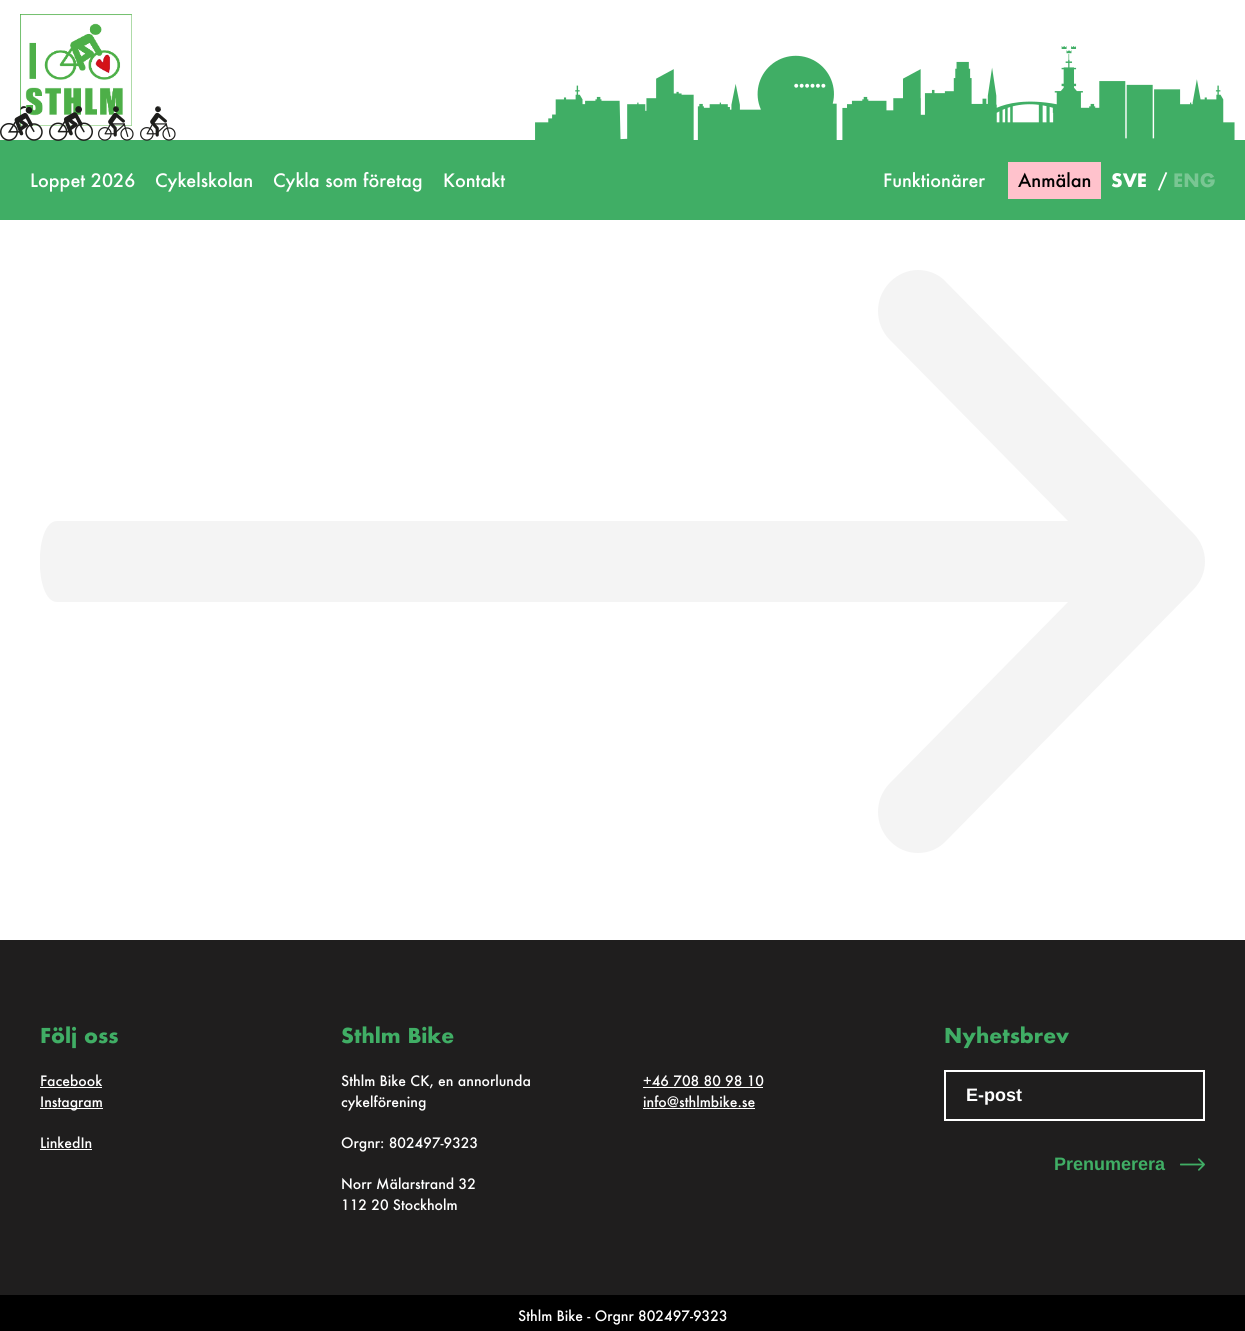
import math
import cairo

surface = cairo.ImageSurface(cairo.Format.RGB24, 1245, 1331)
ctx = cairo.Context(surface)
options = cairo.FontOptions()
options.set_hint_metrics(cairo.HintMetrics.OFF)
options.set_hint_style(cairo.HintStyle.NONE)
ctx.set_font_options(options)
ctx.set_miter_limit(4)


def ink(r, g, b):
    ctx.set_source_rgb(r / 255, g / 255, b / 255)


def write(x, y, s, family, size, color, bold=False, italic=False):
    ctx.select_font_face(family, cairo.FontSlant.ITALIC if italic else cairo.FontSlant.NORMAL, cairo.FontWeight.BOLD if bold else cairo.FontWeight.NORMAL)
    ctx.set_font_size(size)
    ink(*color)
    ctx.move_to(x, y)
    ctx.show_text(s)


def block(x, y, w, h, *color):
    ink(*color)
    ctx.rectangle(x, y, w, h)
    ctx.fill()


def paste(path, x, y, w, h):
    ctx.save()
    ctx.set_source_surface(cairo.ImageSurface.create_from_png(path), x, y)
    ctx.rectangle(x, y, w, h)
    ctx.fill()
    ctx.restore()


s1 = dict(family="Futura Medium", size=18, color=(255, 255, 255))
s2 = dict(family="Futura Medium", size=18, color=(0, 0, 0))
s3 = dict(family="Futura", size=18, color=(255, 255, 255), bold=True)
s4 = dict(family="Futura", size=18, color=(121, 198, 147), bold=True)
s5 = dict(family="Futura", size=20, color=(64, 174, 101), bold=True)
s6 = dict(family="Futura Medium", size=14, color=(255, 255, 255))
s7 = dict(family="Liberation Sans", size=18, color=(255, 255, 255), bold=True)
s8 = dict(family="Liberation Sans", size=18, color=(64, 174, 101), bold=True)

ink(31, 30, 30)
ctx.paint()
block(0, 0, 1245, 940, 255, 255, 255)
ctx.save()
ctx.rectangle(40, 270, 1165, 583)
ctx.clip()
ink(244, 244, 244)
ctx.new_path()
ctx.move_to(57, 602)
ctx.line_to(1068, 602)
ctx.line_to(890, 783)
ctx.curve_to(874, 799, 874, 825, 890, 841)
ctx.curve_to(905, 857, 931, 857, 946, 841)
ctx.line_to(1193, 590)
ctx.curve_to(1209, 574, 1209, 549, 1193, 533)
ctx.line_to(946, 282)
ctx.curve_to(939, 274, 928, 270, 918, 270)
ctx.curve_to(908, 270, 898, 274, 890, 282)
ctx.curve_to(874, 298, 874, 324, 890, 340)
ctx.line_to(1068, 521)
ctx.line_to(57, 521)
ctx.curve_to(34, 521, 34, 602, 57, 602)
ctx.close_path()
ctx.fill()
ctx.restore()
paste("pic1.png", 20, 14, 112, 112)
paste("pic2.png", 535, 46, 700, 94)
block(0, 140, 1245, 80, 64, 174, 101)
paste("pic3.png", 0, 106, 43, 35)
paste("pic4.png", 49, 106, 44, 35)
paste("pic5.png", 98, 106, 36, 35)
paste("pic6.png", 140, 106, 36, 35)
write(30, 187, "Loppet 2026", **s1)
write(155, 187, "Cykelskolan", **s1)
write(273, 187, "Cykla som företag", **s1)
write(443, 187, "Kontakt", **s1)
write(883, 187, "Funktionärer", **s1)
block(1008, 162, 93, 37, 255, 194, 204)
write(1018, 187, "Anmälan", **s2)
write(1111, 187, "SVE", **s3)
write(1158, 187, "/", **s1)
write(1173, 187, "ENG", **s4)
write(40, 1043, "Följ oss", **s5)
write(40, 1086, "Facebook", **s6)
block(40, 1087, 62, 1, 255, 255, 255)
block(40, 1108, 63, 1, 255, 255, 255)
write(40, 1107, "Instagram", **s6)
write(40, 1148, "LinkedIn", **s6)
block(40, 1149, 52, 1, 255, 255, 255)
write(341, 1043, "Sthlm Bike", **s5)
write(341, 1086, "Sthlm Bike CK, en annorlunda", **s6)
write(341, 1107, "cykelförening", **s6)
write(341, 1148, "Orgnr: 802497-9323", **s6)
write(341, 1189, "Norr Mälarstrand 32", **s6)
write(341, 1210, "112 20 Stockholm", **s6)
write(643, 1086, "+46 708 80 98 10", **s6)
block(643, 1087, 120, 1, 255, 255, 255)
write(643, 1107, "info@sthlmbike.se", **s6)
block(643, 1108, 112, 1, 255, 255, 255)
write(944, 1043, "Nyhetsbrev", **s5)
ctx.rectangle(945, 1071, 259, 49)
ink(255, 255, 255)
ctx.stroke()
write(966, 1101, "E-post", **s7)
paste("pic7.png", 1180, 1158, 25, 13)
write(1054, 1170, "Prenumerera", **s8)
block(0, 1295, 1245, 36, 0, 0, 0)
write(518, 1321, "Sthlm Bike - Orgnr 802497-9323", **s6)
surface.write_to_png("screenshot.png")
